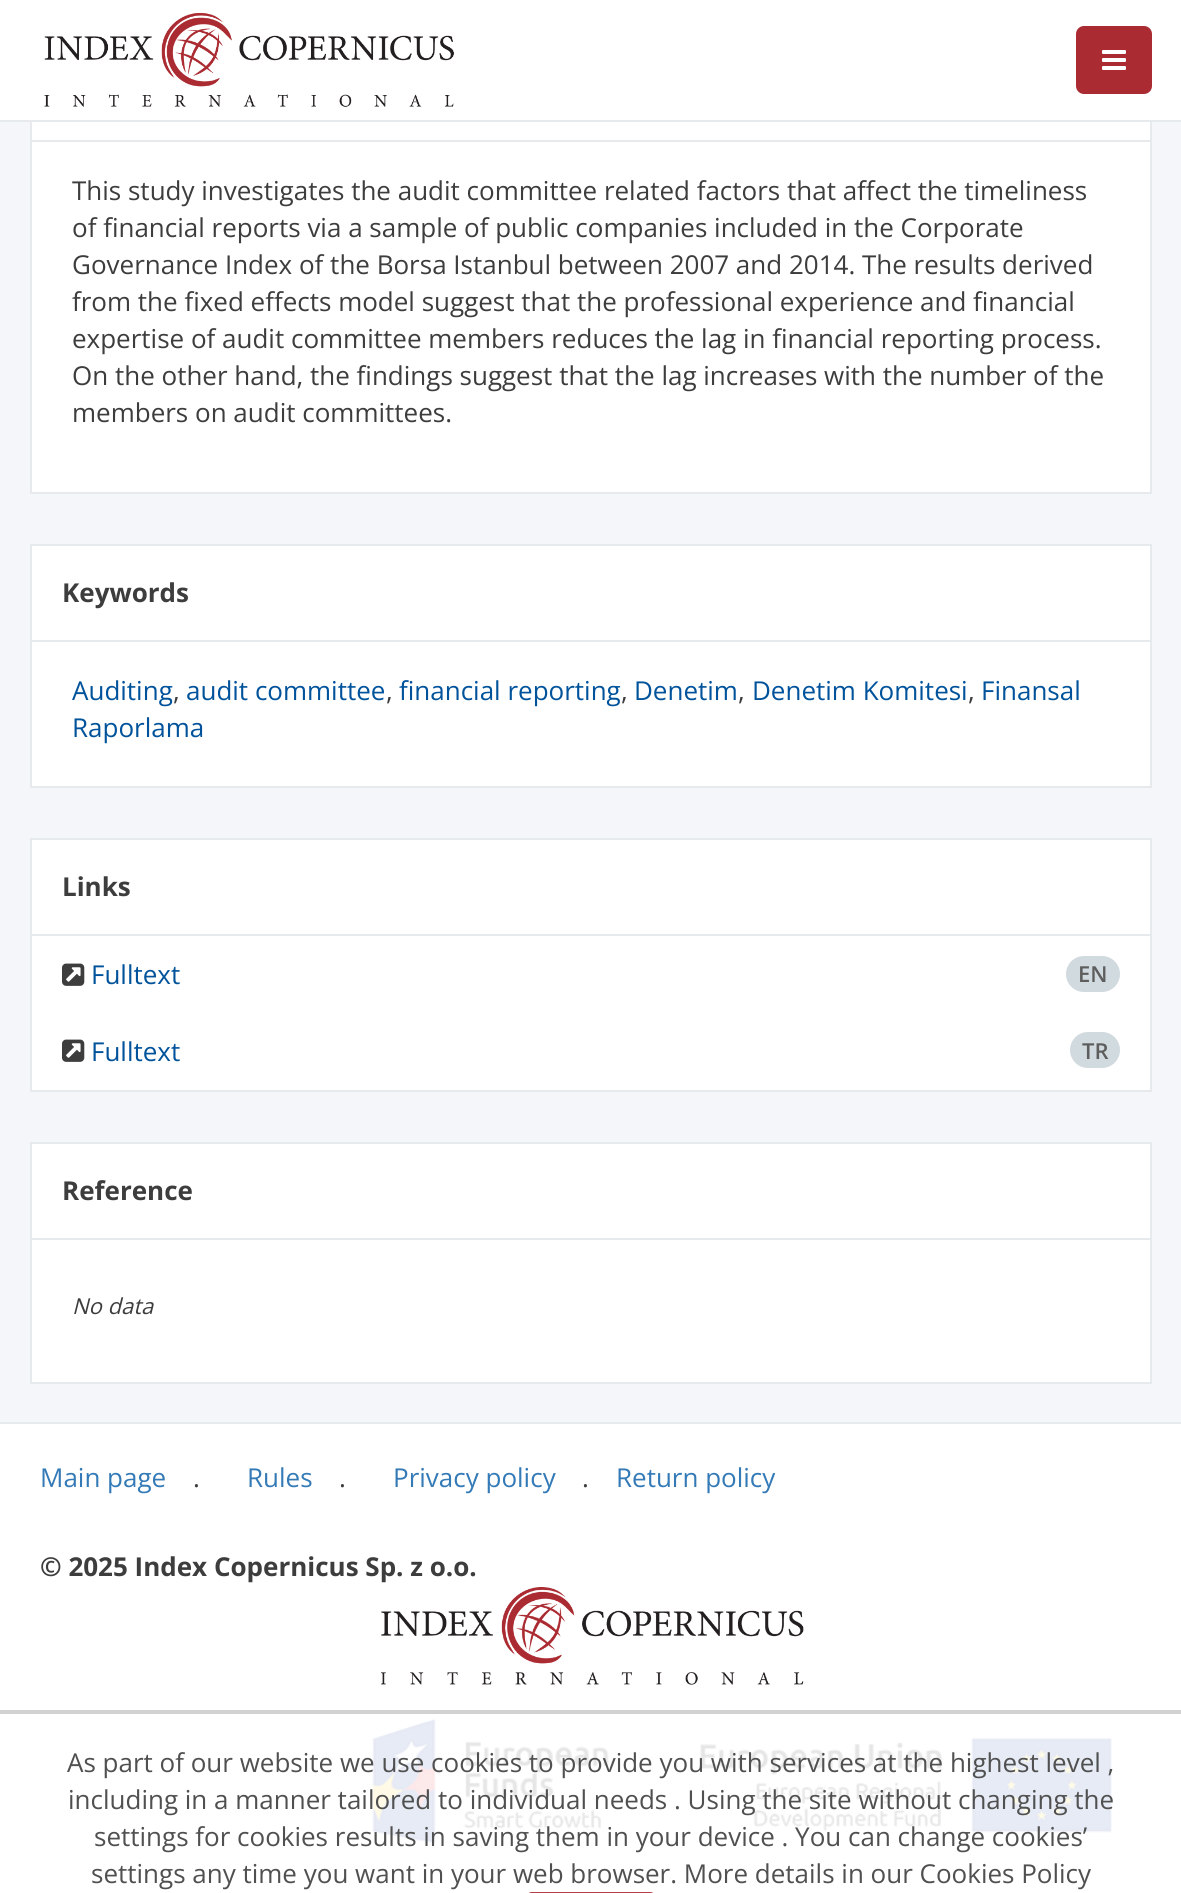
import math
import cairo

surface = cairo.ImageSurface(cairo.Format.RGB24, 1181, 1893)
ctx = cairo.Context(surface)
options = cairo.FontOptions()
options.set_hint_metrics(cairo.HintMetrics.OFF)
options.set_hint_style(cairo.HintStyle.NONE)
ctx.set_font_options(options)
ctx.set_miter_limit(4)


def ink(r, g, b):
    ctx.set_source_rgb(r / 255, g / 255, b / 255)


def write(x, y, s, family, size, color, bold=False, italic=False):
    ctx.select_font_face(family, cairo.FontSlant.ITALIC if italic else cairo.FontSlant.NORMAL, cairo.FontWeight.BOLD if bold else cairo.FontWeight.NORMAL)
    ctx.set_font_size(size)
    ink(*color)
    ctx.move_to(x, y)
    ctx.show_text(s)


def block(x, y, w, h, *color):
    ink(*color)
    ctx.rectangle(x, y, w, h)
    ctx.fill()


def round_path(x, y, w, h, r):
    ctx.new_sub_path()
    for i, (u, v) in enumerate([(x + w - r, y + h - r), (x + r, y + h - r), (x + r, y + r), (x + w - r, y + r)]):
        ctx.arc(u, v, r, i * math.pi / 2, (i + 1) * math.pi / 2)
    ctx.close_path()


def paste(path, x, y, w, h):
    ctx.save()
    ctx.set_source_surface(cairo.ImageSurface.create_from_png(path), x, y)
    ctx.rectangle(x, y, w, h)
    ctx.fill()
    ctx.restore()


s1 = dict(family="Open Sans", size=26, color=(61, 61, 61))
s2 = dict(family="Open Sans", size=26, color=(61, 61, 61), bold=True)
s3 = dict(family="Open Sans", size=26, color=(0, 83, 155))
s4 = dict(family="Open Sans SemiBold", size=22, color=(94, 94, 94))
s5 = dict(family="Open Sans", size=22, color=(61, 61, 61), italic=True)
s6 = dict(family="Open Sans", size=26, color=(51, 122, 183))
s7 = dict(family="Open Sans", size=26, color=(80, 80, 80))

ink(244, 246, 250)
ctx.paint()
block(0, 0, 1181, 120, 255, 255, 255)
block(0, 120, 1181, 2, 231, 234, 236)
paste("pic1.png", 44, 13, 410, 94)
ink(170, 43, 49)
round_path(1076, 26, 76, 68, 8)
ctx.fill()
paste("pic2.png", 1102, 50, 24, 20)
block(32, 122, 1118, 18, 255, 255, 255)
block(1150, 122, 2, 18, 231, 234, 236)
block(30, 122, 2, 18, 231, 234, 236)
ink(255, 255, 255)
ctx.rectangle(31, 141, 1120, 352)
ctx.fill_preserve()
ink(231, 234, 236)
ctx.stroke()
write(72, 200, "This study investigates the audit committee related factors that affect the timeliness", **s1)
write(72, 237, "of financial reports via a sample of public companies included in the Corporate", **s1)
write(72, 274, "Governance Index of the Borsa Istanbul between 2007 and 2014. The results derived", **s1)
write(72, 311, "from the fixed effects model suggest that the professional experience and financial", **s1)
write(72, 348, "expertise of audit committee members reduces the lag in financial reporting process.", **s1)
write(72, 385, "On the other hand, the findings suggest that the lag increases with the number of the", **s1)
write(72, 422, "members on audit committees.", **s1)
block(32, 546, 1118, 94, 255, 255, 255)
block(30, 544, 1122, 2, 231, 234, 236)
block(1150, 544, 2, 96, 231, 234, 236)
block(30, 544, 2, 96, 231, 234, 236)
write(62, 602, "Keywords", **s2)
ink(255, 255, 255)
ctx.rectangle(31, 641, 1120, 146)
ctx.fill_preserve()
ink(231, 234, 236)
ctx.stroke()
write(72, 700, "Auditing", **s3)
write(173, 700, ",", **s1)
write(186, 700, "audit committee", **s3)
write(386, 700, ",", **s1)
write(399, 700, "financial reporting", **s3)
write(621, 700, ",", **s1)
write(634, 700, "Denetim", **s3)
write(738, 700, ",", **s1)
write(752, 700, "Denetim Komitesi", **s3)
write(968, 700, ",", **s1)
write(981, 700, "Finansal", **s3)
write(72, 737, "Raporlama", **s3)
block(32, 840, 1118, 94, 255, 255, 255)
block(30, 838, 1122, 2, 231, 234, 236)
block(1150, 838, 2, 96, 231, 234, 236)
block(30, 838, 2, 96, 231, 234, 236)
write(62, 896, "Links", **s2)
ink(255, 255, 255)
ctx.rectangle(31, 935, 1120, 156)
ctx.fill_preserve()
ink(231, 234, 236)
ctx.stroke()
paste("pic3.png", 62, 963, 23, 23)
write(91, 984, "Fulltext", **s3)
ink(209, 218, 222)
round_path(1066, 956, 54, 36, 18)
ctx.fill()
write(1078, 982, "EN", **s4)
paste("pic3.png", 62, 1039, 23, 23)
write(91, 1061, "Fulltext", **s3)
ink(209, 218, 222)
round_path(1070, 1032, 50, 36, 18)
ctx.fill()
write(1082, 1059, "TR", **s4)
block(32, 1144, 1118, 94, 255, 255, 255)
block(30, 1142, 1122, 2, 231, 234, 236)
block(1150, 1142, 2, 96, 231, 234, 236)
block(30, 1142, 2, 96, 231, 234, 236)
write(62, 1200, "Reference", **s2)
ink(255, 255, 255)
ctx.rectangle(31, 1239, 1120, 144)
ctx.fill_preserve()
ink(231, 234, 236)
ctx.stroke()
write(72, 1314, "No data", **s5)
block(0, 1424, 1181, 286, 255, 255, 255)
block(0, 1714, 1181, 179, 255, 255, 255)
block(0, 1422, 1181, 2, 231, 234, 236)
write(40, 1487, "Main page", **s6)
write(193, 1487, ".", **s1)
write(247, 1487, "Rules", **s6)
write(339, 1487, ".", **s1)
write(393, 1487, "Privacy policy", **s6)
write(582, 1487, ".", **s1)
write(616, 1487, "Return policy", **s6)
write(40, 1576, "© 2025 Index Copernicus Sp. z o.o.", **s2)
paste("pic4.png", 381, 1587, 423, 98)
paste("pic5.png", 372, 1718, 740, 126)
block(0, 1710, 1181, 4, 209, 209, 209)
write(67, 1772, "As part of our website we use cookies to provide you with services at the highest level ,", **s7)
write(68, 1809, "including in a manner tailored to individual needs . Using the site without changing the", **s7)
write(94, 1846, "settings for cookies results in saving them in your device . You can change cookies’", **s7)
write(91, 1883, "settings any time you want in your web browser. More details in our Cookies Policy", **s7)
ink(179, 64, 70)
round_path(526, 1892, 130, 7, 6)
ctx.fill()
surface.write_to_png("screenshot.png")
